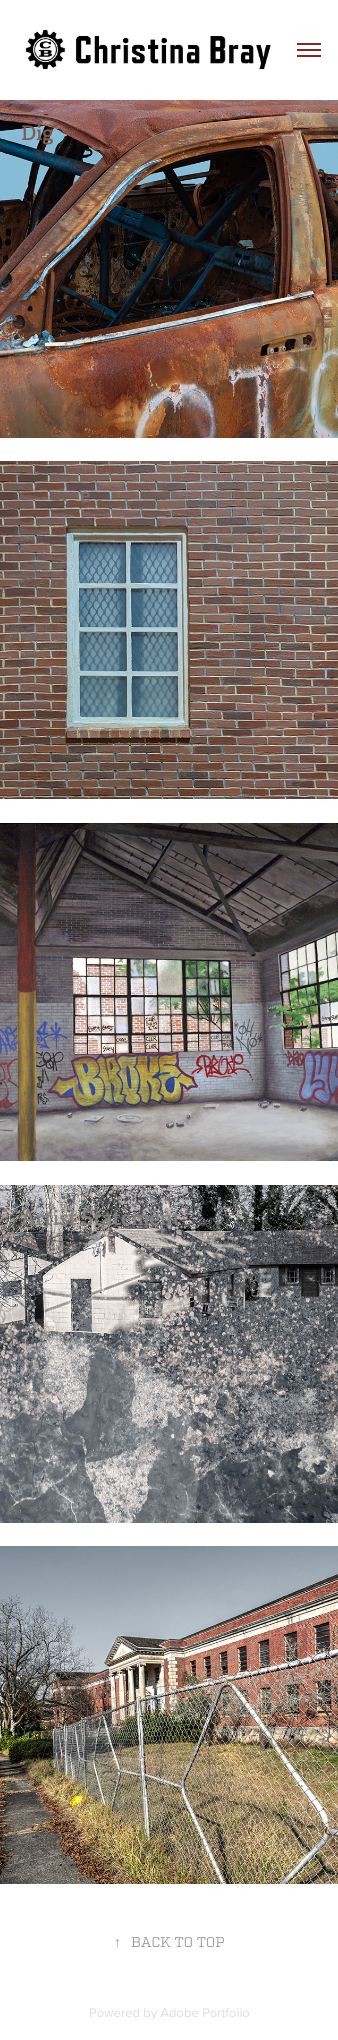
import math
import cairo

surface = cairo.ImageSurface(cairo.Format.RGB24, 338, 2040)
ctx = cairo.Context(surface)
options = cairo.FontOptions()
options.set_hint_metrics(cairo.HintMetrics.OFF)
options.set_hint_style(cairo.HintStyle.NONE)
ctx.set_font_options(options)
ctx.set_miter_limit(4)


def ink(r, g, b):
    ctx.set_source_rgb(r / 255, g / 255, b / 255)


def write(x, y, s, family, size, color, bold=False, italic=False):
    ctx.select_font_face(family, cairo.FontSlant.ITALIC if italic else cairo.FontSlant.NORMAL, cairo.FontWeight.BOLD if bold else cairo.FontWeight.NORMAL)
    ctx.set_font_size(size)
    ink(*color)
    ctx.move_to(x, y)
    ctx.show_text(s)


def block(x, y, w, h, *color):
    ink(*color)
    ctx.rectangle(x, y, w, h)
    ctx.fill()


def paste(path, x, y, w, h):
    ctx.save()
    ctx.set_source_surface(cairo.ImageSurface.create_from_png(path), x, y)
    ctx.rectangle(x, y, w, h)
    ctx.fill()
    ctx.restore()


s1 = dict(family="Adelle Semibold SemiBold", size=20, color=(127, 94, 82))
s2 = dict(family="Adelle Semibold SemiBold", size=20, color=(125, 107, 102))
s3 = dict(family="Adelle Semibold SemiBold", size=20, color=(131, 129, 128))
s4 = dict(family="Liberation Serif", size=14, color=(153, 153, 153))
s5 = dict(family="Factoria", size=14, color=(153, 153, 153))
s6 = dict(family="Proxima Nova", size=13, color=(221, 221, 221))

ink(255, 255, 255)
ctx.paint()
paste("pic1.png", 26, 29, 245, 41)
block(297, 43, 24, 2, 129, 39, 42)
block(297, 49, 24, 2, 129, 39, 42)
block(297, 55, 24, 2, 129, 39, 42)
paste("pic2.png", 0, 100, 338, 338)
write(21, 140, "Dig", **s1)
paste("pic3.png", 0, 461, 338, 338)
write(80, 502, "e", **s2)
paste("pic4.png", 0, 823, 338, 338)
paste("pic5.png", 0, 1185, 338, 338)
write(21, 1225, "Artist Statement", **s3)
paste("pic6.png", 0, 1546, 338, 338)
write(114, 1947, "↑", **s4)
write(131, 1947, "BACK TO TOP", **s5)
write(89, 2017, "Powered by Adobe Portfolio", **s6)
surface.write_to_png("screenshot.png")
